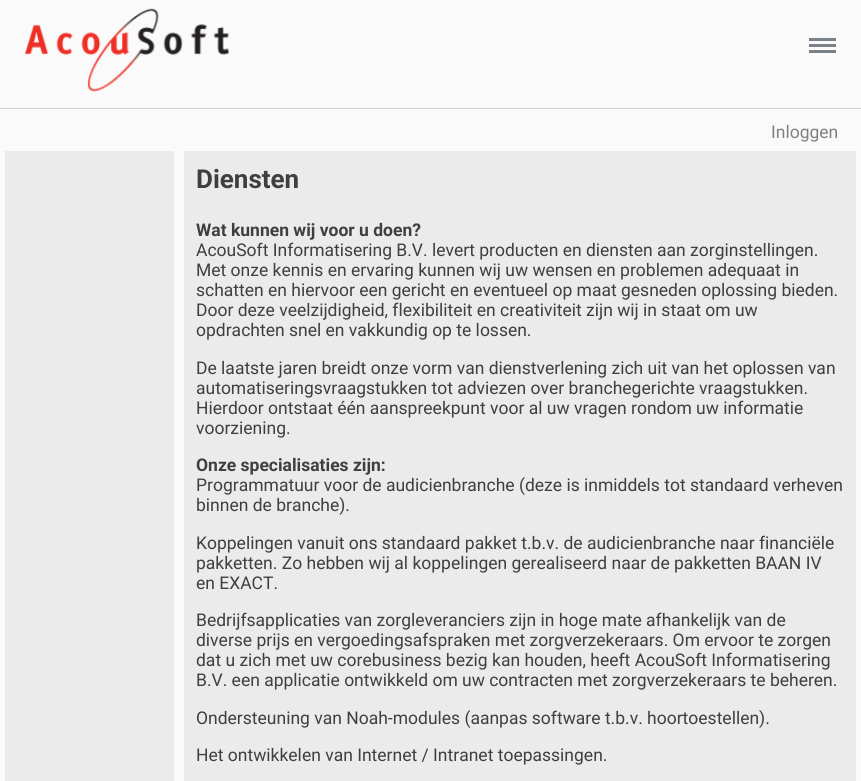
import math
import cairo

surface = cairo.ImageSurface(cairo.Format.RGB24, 861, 781)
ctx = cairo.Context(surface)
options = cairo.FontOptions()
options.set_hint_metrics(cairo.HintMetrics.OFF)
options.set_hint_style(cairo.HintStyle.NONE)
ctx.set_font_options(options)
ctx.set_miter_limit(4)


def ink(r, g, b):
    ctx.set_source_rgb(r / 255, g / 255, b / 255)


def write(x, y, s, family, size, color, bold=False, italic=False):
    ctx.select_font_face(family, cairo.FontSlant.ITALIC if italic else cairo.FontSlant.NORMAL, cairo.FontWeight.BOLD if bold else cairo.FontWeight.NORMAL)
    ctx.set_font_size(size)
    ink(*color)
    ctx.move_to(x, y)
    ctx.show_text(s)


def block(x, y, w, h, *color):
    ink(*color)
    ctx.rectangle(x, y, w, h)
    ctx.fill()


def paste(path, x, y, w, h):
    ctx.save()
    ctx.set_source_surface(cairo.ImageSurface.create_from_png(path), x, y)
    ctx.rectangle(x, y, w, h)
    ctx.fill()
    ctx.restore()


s1 = dict(family="Roboto", size=17.5, color=(128, 128, 128))
s2 = dict(family="Roboto", size=26, color=(63, 63, 63), bold=True)
s3 = dict(family="Roboto", size=17.5, color=(63, 63, 63), bold=True)
s4 = dict(family="Roboto", size=17.5, color=(63, 63, 63))

ink(250, 250, 250)
ctx.paint()
paste("pic1.png", 25, 8, 204, 84)
block(809, 38, 27, 3, 122, 129, 137)
block(809, 44, 27, 3, 122, 129, 137)
block(809, 50, 27, 3, 122, 129, 137)
block(0, 109, 861, 1, 255, 255, 255)
block(0, 108, 861, 1, 204, 204, 204)
write(771, 138, "Inloggen", **s1)
block(5, 151, 169, 630, 235, 235, 235)
block(184, 151, 672, 630, 235, 235, 235)
write(196, 188, "Diensten", **s2)
write(196, 236, "Wat kunnen wij voor u doen?", **s3)
write(196, 256, "AcouSoft Informatisering B.V. levert producten en diensten aan zorginstellingen.", **s4)
write(196, 276, "Met onze kennis en ervaring kunnen wij uw wensen en problemen adequaat in", **s4)
write(196, 296, "schatten en hiervoor een gericht en eventueel op maat gesneden oplossing bieden.", **s4)
write(196, 316, "Door deze veelzijdigheid, flexibiliteit en creativiteit zijn wij in staat om uw", **s4)
write(196, 336, "opdrachten snel en vakkundig op te lossen.", **s4)
write(196, 374, "De laatste jaren breidt onze vorm van dienstverlening zich uit van het oplossen van", **s4)
write(196, 394, "automatiseringsvraagstukken tot adviezen over branchegerichte vraagstukken.", **s4)
write(196, 414, "Hierdoor ontstaat één aanspreekpunt voor al uw vragen rondom uw informatie", **s4)
write(196, 434, "voorziening.", **s4)
write(196, 471, "Onze specialisaties zijn:", **s3)
write(196, 491, "Programmatuur voor de audicienbranche (deze is inmiddels tot standaard verheven", **s4)
write(196, 511, "binnen de branche).", **s4)
write(196, 549, "Koppelingen vanuit ons standaard pakket t.b.v. de audicienbranche naar financiële", **s4)
write(196, 569, "pakketten. Zo hebben wij al koppelingen gerealiseerd naar de pakketten BAAN IV", **s4)
write(196, 589, "en EXACT.", **s4)
write(196, 626, "Bedrijfsapplicaties van zorgleveranciers zijn in hoge mate afhankelijk van de", **s4)
write(196, 646, "diverse prijs en vergoedingsafspraken met zorgverzekeraars. Om ervoor te zorgen", **s4)
write(196, 666, "dat u zich met uw corebusiness bezig kan houden, heeft AcouSoft Informatisering", **s4)
write(196, 686, "B.V. een applicatie ontwikkeld om uw contracten met zorgverzekeraars te beheren.", **s4)
write(196, 724, "Ondersteuning van Noah-modules (aanpas software t.b.v. hoortoestellen).", **s4)
write(196, 761, "Het ontwikkelen van Internet / Intranet toepassingen.", **s4)
surface.write_to_png("screenshot.png")
